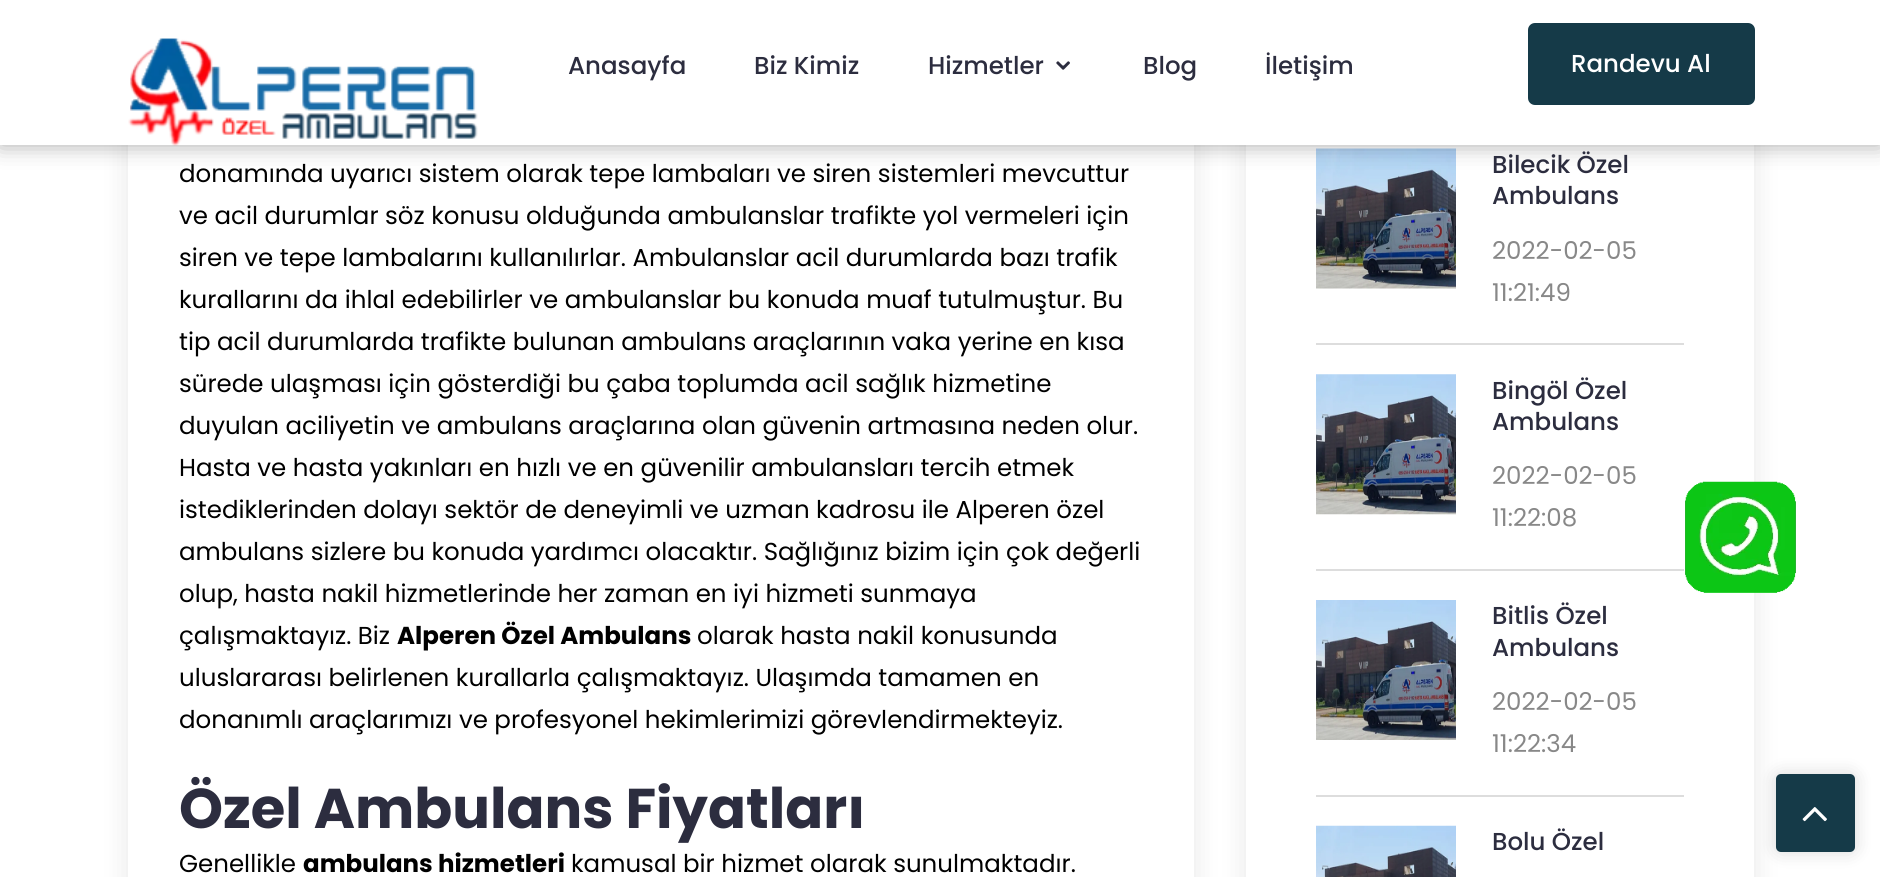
import math
import cairo

surface = cairo.ImageSurface(cairo.Format.RGB24, 1880, 877)
ctx = cairo.Context(surface)
options = cairo.FontOptions()
options.set_hint_metrics(cairo.HintMetrics.OFF)
options.set_hint_style(cairo.HintStyle.NONE)
ctx.set_font_options(options)
ctx.set_miter_limit(4)


def ink(r, g, b):
    ctx.set_source_rgb(r / 255, g / 255, b / 255)


def write(x, y, s, family, size, color, bold=False, italic=False):
    ctx.select_font_face(family, cairo.FontSlant.ITALIC if italic else cairo.FontSlant.NORMAL, cairo.FontWeight.BOLD if bold else cairo.FontWeight.NORMAL)
    ctx.set_font_size(size)
    ink(*color)
    ctx.move_to(x, y)
    ctx.show_text(s)


def block(x, y, w, h, *color):
    ink(*color)
    ctx.rectangle(x, y, w, h)
    ctx.fill()


def round_path(x, y, w, h, r):
    ctx.new_sub_path()
    for i, (u, v) in enumerate([(x + w - r, y + h - r), (x + r, y + h - r), (x + r, y + r), (x + w - r, y + r)]):
        ctx.arc(u, v, r, i * math.pi / 2, (i + 1) * math.pi / 2)
    ctx.close_path()


def blur_box(x, y, w, h, r, blur, alpha):
    ctx.push_group_with_content(cairo.Content.ALPHA)
    ctx.set_operator(cairo.Operator.SOURCE)
    for i in range(15, -16, -2):
        e = blur * i / 6
        if min(w, h) + 2 * e > 0:
            ctx.set_source_rgba(0, 0, 0, alpha * math.erfc((i - 1) / 8.5) / 2)
            round_path(x - e, y - e, w + 2 * e, h + 2 * e, max(0, min(r + e + blur * .6, min(w, h) / 2 + e)))
            ctx.fill()
    ctx.mask(ctx.pop_group())


def paste(path, x, y, w, h):
    ctx.save()
    ctx.set_source_surface(cairo.ImageSurface.create_from_png(path), x, y)
    ctx.rectangle(x, y, w, h)
    ctx.fill()
    ctx.restore()


s1 = dict(family="Poppins Medium", size=24.5, color=(44, 45, 63))
s2 = dict(family="Poppins Medium", size=24.5, color=(255, 255, 255))
s3 = dict(family="Poppins", size=24.5, color=(0, 0, 0))
s4 = dict(family="Poppins", size=24.5, color=(0, 0, 0), bold=True)
s5 = dict(family="Poppins", size=56, color=(44, 45, 63), bold=True)
s6 = dict(family="Poppins", size=24.5, color=(136, 136, 136))

ink(255, 255, 255)
ctx.paint()
ink(0, 0, 0)
blur_box(128, -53, 1066, 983, 14, 13, 0.1)
block(128, 145, 1066, 732, 255, 255, 255)
ink(0, 0, 0)
blur_box(1246, -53, 508, 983, 14, 13, 0.1)
block(1246, 145, 508, 732, 255, 255, 255)
paste("pic3.png", 1316, 148, 140, 141)
ink(0, 0, 0)
blur_box(0, 0, 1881, 145, 0, 11.5, 0.33)
block(0, 0, 1880, 145, 255, 255, 255)
paste("pic1.png", 128, 38, 350, 108)
write(568, 74, "Anasayfa", **s1)
write(754, 74, "Biz Kimiz", **s1)
write(928, 74, "Hizmetler", **s1)
paste("pic2.png", 1056, 61, 14, 9)
write(1143, 74, "Blog", **s1)
write(1265, 74, "İletişim", **s1)
ink(21, 58, 72)
round_path(1528, 23, 227, 82, 7)
ctx.fill()
write(1571, 72, "Randevu Al", **s2)
write(179, 182, "donamında uyarıcı sistem olarak tepe lambaları ve siren sistemleri mevcuttur", **s3)
write(179, 224, "ve acil durumlar söz konusu olduğunda ambulanslar trafikte yol vermeleri için", **s3)
write(179, 266, "siren ve tepe lambalarını kullanılırlar. Ambulanslar acil durumlarda bazı trafik", **s3)
write(179, 308, "kurallarını da ihlal edebilirler ve ambulanslar bu konuda muaf tutulmuştur. Bu", **s3)
write(179, 350, "tip acil durumlarda trafikte bulunan ambulans araçlarının vaka yerine en kısa", **s3)
write(179, 392, "sürede ulaşması için gösterdiği bu çaba toplumda acil sağlık hizmetine", **s3)
write(179, 434, "duyulan aciliyetin ve ambulans araçlarına olan güvenin artmasına neden olur.", **s3)
write(179, 476, "Hasta ve hasta yakınları en hızlı ve en güvenilir ambulansları tercih etmek", **s3)
write(179, 518, "istediklerinden dolayı sektör de deneyimli ve uzman kadrosu ile Alperen özel", **s3)
write(179, 560, "ambulans sizlere bu konuda yardımcı olacaktır. Sağlığınız bizim için çok değerli", **s3)
write(179, 602, "olup, hasta nakil hizmetlerinde her zaman en iyi hizmeti sunmaya", **s3)
write(179, 644, "çalışmaktayız. Biz", **s3)
write(397, 644, "Alperen Özel Ambulans", **s4)
write(697, 644, "olarak hasta nakil konusunda", **s3)
write(179, 686, "uluslararası belirlenen kurallarla çalışmaktayız. Ulaşımda tamamen en", **s3)
write(179, 728, "donanımlı araçlarımızı ve profesyonel hekimlerimizi görevlendirmekteyiz.", **s3)
write(179, 828, "Özel Ambulans Fiyatları", **s5)
write(179, 872, "Genellikle", **s3)
write(303, 872, "ambulans hizmetleri", **s4)
write(571, 872, "kamusal bir hizmet olarak sunulmaktadır.", **s3)
block(1316, 343, 368, 2, 221, 221, 221)
write(1492, 173, "Bilecik Özel", **s1)
write(1492, 204, "Ambulans", **s1)
write(1492, 259, "2022-02-05", **s6)
write(1492, 301, "11:21:49", **s6)
block(1316, 569, 368, 2, 221, 221, 221)
paste("pic4.png", 1316, 374, 140, 141)
write(1492, 399, "Bingöl Özel", **s1)
write(1492, 430, "Ambulans", **s1)
write(1492, 484, "2022-02-05", **s6)
write(1492, 526, "11:22:08", **s6)
block(1316, 795, 368, 2, 221, 221, 221)
paste("pic5.png", 1316, 600, 140, 140)
write(1492, 624, "Bitlis Özel", **s1)
write(1492, 656, "Ambulans", **s1)
write(1492, 710, "2022-02-05", **s6)
write(1492, 752, "11:22:34", **s6)
paste("pic6.png", 1316, 825, 140, 52)
write(1492, 850, "Bolu Özel", **s1)
paste("pic7.png", 1685, 481, 111, 112)
ink(0, 0, 0)
blur_box(1776, 774, 79, 78, 5, 9, 0.15)
ink(21, 58, 72)
round_path(1776, 774, 79, 78, 5)
ctx.fill()
paste("pic8.png", 1802, 807, 25, 15)
surface.write_to_png("screenshot.png")
